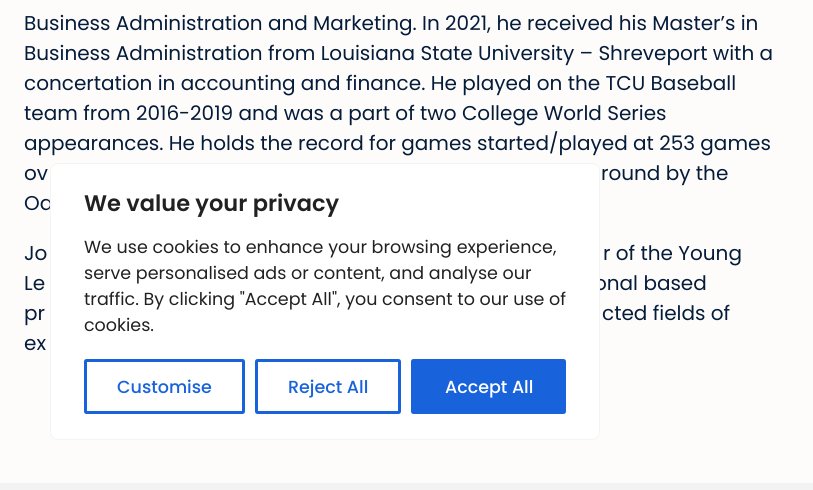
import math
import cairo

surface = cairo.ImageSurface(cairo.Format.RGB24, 813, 490)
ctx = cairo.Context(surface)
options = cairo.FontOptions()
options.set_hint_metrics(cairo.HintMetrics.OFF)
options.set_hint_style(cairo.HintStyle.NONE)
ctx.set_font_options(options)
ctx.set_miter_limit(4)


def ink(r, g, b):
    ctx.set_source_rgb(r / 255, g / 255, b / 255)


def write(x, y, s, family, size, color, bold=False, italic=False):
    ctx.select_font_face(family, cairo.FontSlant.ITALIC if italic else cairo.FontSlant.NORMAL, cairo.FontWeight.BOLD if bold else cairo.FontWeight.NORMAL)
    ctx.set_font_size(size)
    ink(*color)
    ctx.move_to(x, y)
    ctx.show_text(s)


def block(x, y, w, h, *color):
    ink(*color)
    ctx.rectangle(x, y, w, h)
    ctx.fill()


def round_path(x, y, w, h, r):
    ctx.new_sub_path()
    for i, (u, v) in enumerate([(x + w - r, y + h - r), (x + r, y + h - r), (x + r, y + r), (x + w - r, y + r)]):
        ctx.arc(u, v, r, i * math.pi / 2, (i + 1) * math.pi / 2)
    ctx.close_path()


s1 = dict(family="Poppins", size=20, color=(4, 28, 58))
s2 = dict(family="Poppins SemiBold", size=22.5, color=(33, 33, 33))
s3 = dict(family="Poppins", size=17.5, color=(33, 33, 33))
s4 = dict(family="Poppins Medium", size=17.5, color=(24, 99, 220))
s5 = dict(family="Poppins Medium", size=17.5, color=(255, 255, 255))

ink(254, 252, 250)
ctx.paint()
write(24, 30, "Business Administration and Marketing. In 2021, he received his Master’s in", **s1)
write(24, 60, "Business Administration from Louisiana State University – Shreveport with a", **s1)
write(24, 90, "concertation in accounting and finance. He played on the TCU Baseball", **s1)
write(24, 120, "team from 2016-2019 and was a part of two College World Series", **s1)
write(24, 150, "appearances. He holds the record for games started/played at 253 games", **s1)
write(24, 180, "ov", **s1)
write(601, 180, "round by the", **s1)
write(24, 210, "Oa", **s1)
write(24, 260, "Jo", **s1)
write(603, 260, "r of the Young", **s1)
write(24, 290, "Le", **s1)
write(594, 290, "onal based", **s1)
write(24, 320, "pr", **s1)
write(602, 320, "cted fields of", **s1)
write(24, 350, "ex", **s1)
block(0, 483, 813, 7, 243, 243, 243)
ink(255, 255, 255)
round_path(50.5, 163.5, 549, 276, 7.5)
ctx.fill_preserve()
ink(244, 244, 244)
ctx.set_line_width(1)
ctx.stroke()
write(84, 211, "We value your privacy", **s2)
write(84, 253, "We use cookies to enhance your browsing experience,", **s3)
write(84, 279, "serve personalised ads or content, and analyse our", **s3)
write(84, 305, "traffic. By clicking \"Accept All\", you consent to our use of", **s3)
write(84, 331, "cookies.", **s3)
round_path(85.5, 360.5, 158, 52, 1)
ink(24, 99, 220)
ctx.set_line_width(3)
ctx.stroke()
write(117, 393, "Customise", **s4)
round_path(256.5, 360.5, 143, 52, 1)
ctx.stroke()
write(288, 393, "Reject All", **s4)
round_path(412.5, 360.5, 152, 52, 1)
ctx.fill_preserve()
ctx.stroke()
write(445, 393, "Accept All", **s5)
surface.write_to_png("screenshot.png")
